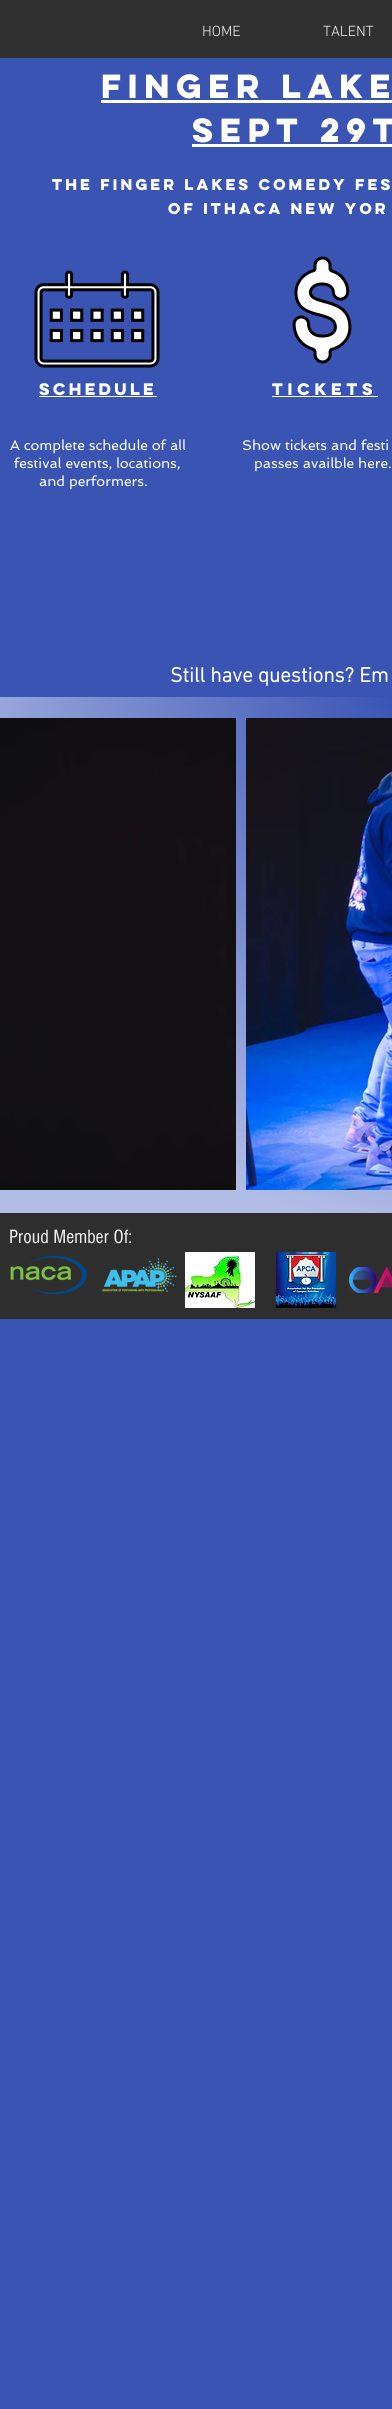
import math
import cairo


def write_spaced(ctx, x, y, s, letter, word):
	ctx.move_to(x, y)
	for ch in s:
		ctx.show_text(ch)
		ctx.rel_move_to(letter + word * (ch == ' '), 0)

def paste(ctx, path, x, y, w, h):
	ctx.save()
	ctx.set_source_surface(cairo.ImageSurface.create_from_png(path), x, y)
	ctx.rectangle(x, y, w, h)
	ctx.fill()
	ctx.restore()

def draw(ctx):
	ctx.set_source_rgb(0.227, 0.329, 0.706)
	ctx.paint()
	ctx.set_source_rgb(0.188, 0.188, 0.188)
	ctx.rectangle(0, 0, 392, 58)
	ctx.fill()
	ctx.select_font_face('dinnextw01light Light')
	ctx.set_font_size(15)
	ctx.set_source_rgb(0.941, 0.941, 0.941)
	ctx.move_to(202, 36)
	ctx.show_text('HOME')
	ctx.move_to(323, 36)
	ctx.show_text('TALENT')
	ctx.select_font_face('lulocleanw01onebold', cairo.FONT_SLANT_NORMAL, cairo.FONT_WEIGHT_BOLD)
	ctx.set_font_size(30)
	ctx.set_source_rgb(1, 1, 0.996)
	ctx.move_to(101, 98)
	ctx.show_text('FINGER LAKE')
	ctx.rectangle(101, 100, 291, 3)
	ctx.fill()
	ctx.move_to(192, 142)
	ctx.show_text('Sept 29t')
	ctx.rectangle(192, 144, 200, 3)
	ctx.fill()
	ctx.set_font_size(14)
	ctx.move_to(52, 190)
	ctx.show_text('The Finger Lakes Comedy Fes')
	ctx.move_to(168, 214)
	ctx.show_text('of Ithaca New Yor')
	paste(ctx, 'media/1.png', 34, 270, 126, 98)
	paste(ctx, 'media/2.png', 292, 256, 60, 108)
	ctx.set_font_size(15)
	ctx.move_to(39, 395)
	ctx.show_text('Schedule')
	ctx.set_source_rgb(1, 1, 1)
	ctx.rectangle(39, 396, 118, 1)
	ctx.fill()
	ctx.set_source_rgb(1, 1, 0.996)
	write_spaced(ctx, 272, 395, 'Tickets', 1.5, 0)
	ctx.set_source_rgb(1, 1, 1)
	ctx.rectangle(272, 396, 106, 1)
	ctx.fill()
	ctx.select_font_face('Spinnaker')
	ctx.set_font_size(14)
	ctx.set_source_rgb(1, 1, 0.996)
	for x, y, s in [
		(10, 450, 'A complete schedule of all'),
		(14, 468, 'festival events, locations,'),
		(39, 486, 'and performers.'),
		(242, 450, 'Show tickets and festi'),
		(254, 468, 'passes availble here.'),
	]:
		ctx.move_to(x, y)
		ctx.show_text(s)
	ctx.select_font_face('dinnextw01light', cairo.FONT_SLANT_NORMAL, cairo.FONT_WEIGHT_BOLD)
	ctx.set_font_size(21)
	ctx.move_to(170, 682)
	ctx.show_text('Still have questions? Em')
	gradient = cairo.RadialGradient(490, 636, 0, 490, 636, 757)
	gradient.add_color_stop_rgba(0.15, 0.227, 0.329, 0.706, 1)
	gradient.add_color_stop_rgba(0.8, 0.698, 0.741, 0.902, 1)
	ctx.set_source(gradient)
	ctx.rectangle(0, 697, 392, 516)
	ctx.fill()
	paste(ctx, 'media/3.png', 0, 718, 236, 472)
	paste(ctx, 'media/4.png', 246, 718, 146, 472)
	ctx.set_source_rgb(0.184, 0.18, 0.18)
	ctx.rectangle(0, 1213, 392, 106)
	ctx.fill()
	ctx.select_font_face('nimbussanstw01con')
	ctx.set_font_size(20)
	ctx.set_source_rgb(0.941, 0.941, 0.941)
	ctx.move_to(9, 1243)
	ctx.show_text('Proud Member Of:')
	paste(ctx, 'media/5.png', 10, 1255, 77, 40)
	paste(ctx, 'media/6.png', 101, 1258, 76, 34)
	paste(ctx, 'media/7.png', 185, 1252, 70, 56)
	paste(ctx, 'media/8.png', 275, 1252, 62, 56)
	paste(ctx, 'media/9.png', 349, 1267, 43, 26)


surface = cairo.ImageSurface(cairo.FORMAT_RGB24, 392, 2409)
ctx = cairo.Context(surface)
options = cairo.FontOptions()
options.set_hint_metrics(cairo.HINT_METRICS_OFF)
options.set_hint_style(cairo.HINT_STYLE_NONE)
ctx.set_font_options(options)
ctx.set_miter_limit(4)
draw(ctx)
surface.write_to_png('image.png')
